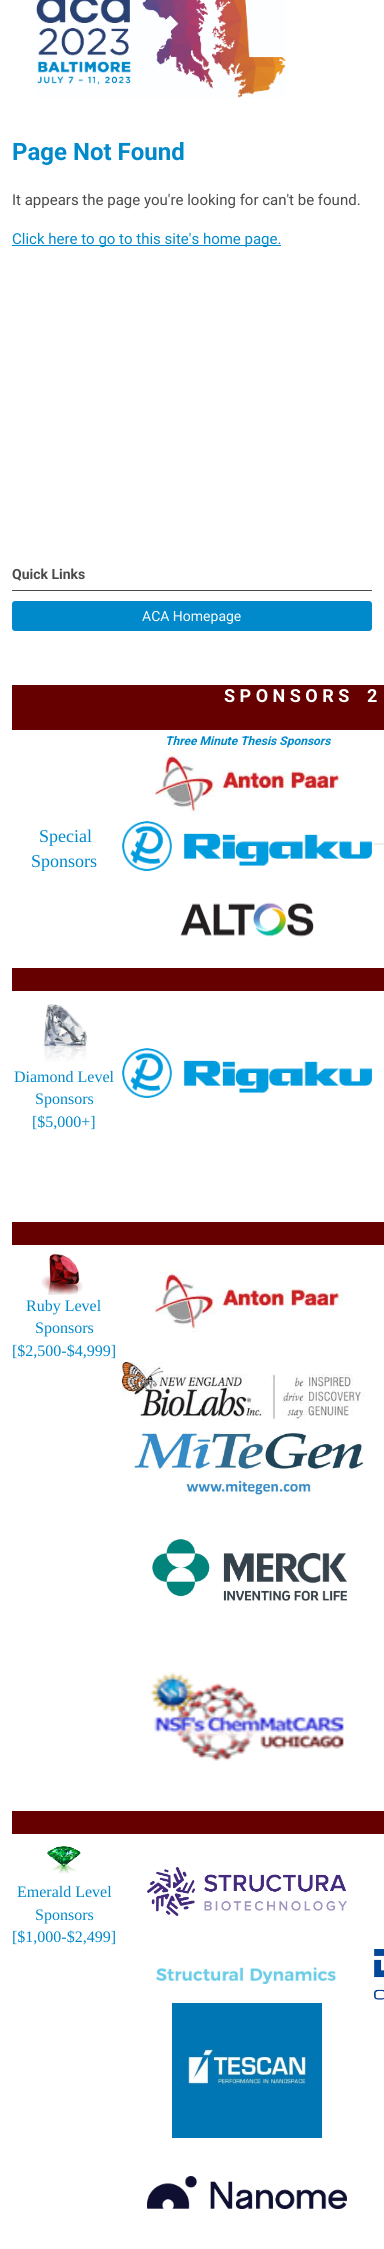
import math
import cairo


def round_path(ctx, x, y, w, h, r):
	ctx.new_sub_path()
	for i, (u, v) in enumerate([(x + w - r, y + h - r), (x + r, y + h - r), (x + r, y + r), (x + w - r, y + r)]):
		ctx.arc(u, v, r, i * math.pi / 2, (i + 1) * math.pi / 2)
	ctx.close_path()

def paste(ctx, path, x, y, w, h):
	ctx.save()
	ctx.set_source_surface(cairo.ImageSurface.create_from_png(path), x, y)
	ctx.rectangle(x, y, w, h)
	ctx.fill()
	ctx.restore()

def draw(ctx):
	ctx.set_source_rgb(1, 1, 1)
	ctx.paint()
	paste(ctx, 'media/1.png', 36, 0, 250, 98)
	ctx.select_font_face('Roboto', cairo.FONT_SLANT_NORMAL, cairo.FONT_WEIGHT_BOLD)
	ctx.set_font_size(24)
	ctx.set_source_rgb(0, 0.537, 0.796)
	ctx.move_to(12, 160)
	ctx.show_text('Page Not Found')
	ctx.select_font_face('Roboto')
	ctx.set_font_size(15)
	ctx.set_source_rgb(0.29, 0.29, 0.29)
	ctx.move_to(12, 205)
	ctx.show_text('It appears the page you\'re looking for can\'t be found.')
	ctx.set_source_rgb(0, 0.537, 0.796)
	ctx.rectangle(12, 245, 269, 1)
	ctx.fill()
	ctx.move_to(12, 244)
	ctx.show_text('Click here to go to this site\'s home page.')
	ctx.set_source_rgb(0.29, 0.29, 0.29)
	ctx.rectangle(12, 590, 360, 1)
	ctx.fill()
	ctx.select_font_face('Roboto', cairo.FONT_SLANT_NORMAL, cairo.FONT_WEIGHT_BOLD)
	ctx.set_font_size(14)
	ctx.move_to(12, 579)
	ctx.show_text('Quick Links')
	ctx.set_source_rgb(0, 0.537, 0.796)
	round_path(ctx, 12, 601, 360, 30, 3)
	ctx.fill()
	ctx.select_font_face('Roboto')
	ctx.set_source_rgb(1, 1, 1)
	ctx.move_to(142, 621)
	ctx.show_text('ACA Homepage')
	ctx.set_source_rgb(0.4, 0, 0)
	ctx.rectangle(12, 685, 372, 45)
	ctx.fill()
	ctx.select_font_face('Roboto', cairo.FONT_SLANT_NORMAL, cairo.FONT_WEIGHT_BOLD)
	ctx.set_font_size(18)
	ctx.set_source_rgb(1, 1, 1)
	ctx.move_to(224, 702)
	ctx.show_text('S P O N S O R S    2')
	ctx.select_font_face('Roboto', cairo.FONT_SLANT_ITALIC, cairo.FONT_WEIGHT_BOLD)
	ctx.set_font_size(12)
	ctx.set_source_rgb(0, 0.537, 0.796)
	ctx.move_to(165, 745)
	ctx.show_text('Three Minute Thesis Sponsors')
	paste(ctx, 'media/2.png', 152, 752, 191, 63)
	paste(ctx, 'media/3.png', 122, 821, 250, 50)
	paste(ctx, 'media/4.png', 180, 902, 134, 35)
	ctx.select_font_face('Liberation Serif')
	ctx.set_font_size(18)
	ctx.move_to(39, 842)
	ctx.show_text('Special')
	ctx.move_to(31, 867)
	ctx.show_text('Sponsors')
	ctx.set_source_rgb(0.933, 0.933, 0.933)
	ctx.rectangle(374, 843, 10, 2)
	ctx.fill()
	ctx.set_source_rgb(0.4, 0, 0)
	ctx.rectangle(12, 968, 372, 23)
	ctx.fill()
	paste(ctx, 'media/5.png', 43, 1004, 44, 58)
	ctx.set_font_size(16)
	ctx.set_source_rgb(0, 0.537, 0.796)
	for x, y, s in [
		(14, 1082, 'Diamond Level'),
		(35, 1104, 'Sponsors'),
		(32, 1127, '[$5,000+]'),
	]:
		ctx.move_to(x, y)
		ctx.show_text(s)
	paste(ctx, 'media/6.png', 122, 1048, 250, 50)
	ctx.set_source_rgb(0.4, 0, 0)
	ctx.rectangle(12, 1222, 372, 23)
	ctx.fill()
	paste(ctx, 'media/7.png', 41, 1253, 42, 42)
	ctx.set_source_rgb(0, 0.537, 0.796)
	for x, y, s in [
		(26, 1311, 'Ruby Level'),
		(35, 1333, 'Sponsors'),
		(12, 1356, '[$2,500-$4,999]'),
	]:
		ctx.move_to(x, y)
		ctx.show_text(s)
	paste(ctx, 'media/8.png', 152, 1270, 191, 62)
	paste(ctx, 'media/9.png', 122, 1362, 243, 58)
	paste(ctx, 'media/10.png', 134, 1432, 230, 64)
	paste(ctx, 'media/11.png', 152, 1539, 195, 62)
	paste(ctx, 'media/12.png', 150, 1672, 194, 89)
	ctx.set_source_rgb(0.4, 0, 0)
	ctx.rectangle(12, 1811, 372, 23)
	ctx.fill()
	paste(ctx, 'media/13.png', 47, 1846, 34, 28)
	ctx.set_source_rgb(0, 0.537, 0.796)
	for x, y, s in [
		(17, 1897, 'Emerald Level'),
		(35, 1920, 'Sponsors'),
		(12, 1942, '[$1,000-$2,499]'),
	]:
		ctx.move_to(x, y)
		ctx.show_text(s)
	paste(ctx, 'media/14.png', 147, 1867, 200, 49)
	paste(ctx, 'media/15.png', 156, 1967, 180, 18)
	paste(ctx, 'media/16.png', 374, 1949, 10, 51)
	paste(ctx, 'media/17.png', 172, 2003, 150, 135)
	paste(ctx, 'media/18.png', 147, 2176, 200, 33)


surface = cairo.ImageSurface(cairo.FORMAT_RGB24, 384, 2249)
ctx = cairo.Context(surface)
options = cairo.FontOptions()
options.set_hint_metrics(cairo.HINT_METRICS_OFF)
options.set_hint_style(cairo.HINT_STYLE_NONE)
ctx.set_font_options(options)
ctx.set_miter_limit(4)
draw(ctx)
surface.write_to_png('image.png')
